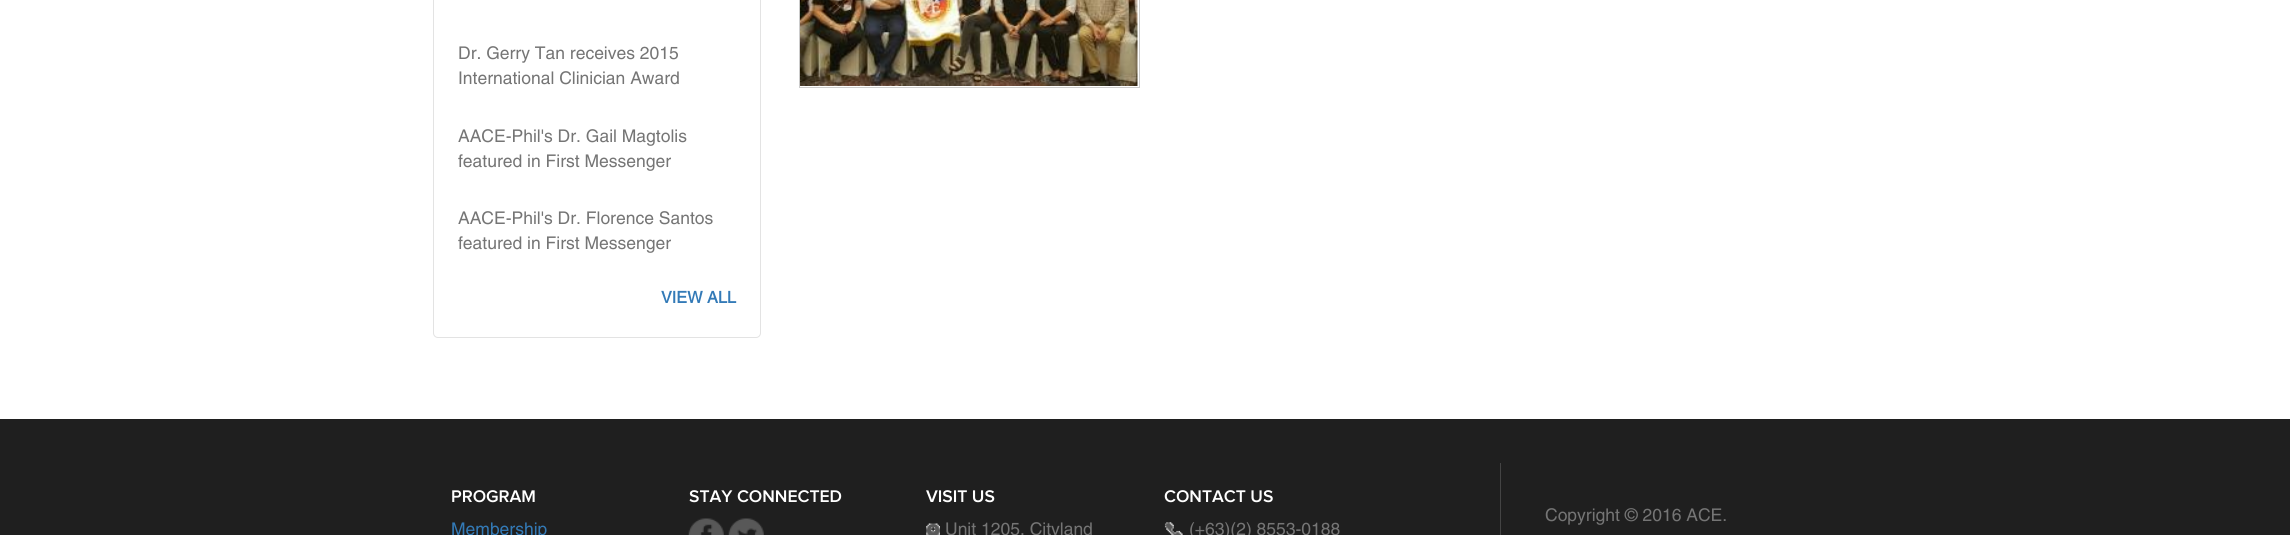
import math
import cairo


def round_path(ctx, x, y, w, h, r):
	ctx.new_sub_path()
	for i, (u, v) in enumerate([(x + w - r, y + h - r), (x + r, y + h - r), (x + r, y + r), (x + w - r, y + r)]):
		ctx.arc(u, v, r, i * math.pi / 2, (i + 1) * math.pi / 2)
	ctx.close_path()

def paste(ctx, path, x, y, w, h):
	ctx.save()
	ctx.set_source_surface(cairo.ImageSurface.create_from_png(path), x, y)
	ctx.rectangle(x, y, w, h)
	ctx.fill()
	ctx.restore()

def draw(ctx):
	ctx.set_source_rgb(1, 1, 1)
	ctx.paint()
	round_path(ctx, 433.5, -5.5, 327, 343, 4.5)
	ctx.set_source_rgb(0.89, 0.89, 0.89)
	ctx.set_line_width(1)
	ctx.stroke()
	ctx.select_font_face('Helvetica')
	ctx.set_font_size(17.5)
	ctx.set_source_rgb(0.459, 0.459, 0.459)
	for x, y, s in [
		(458, 59, 'Dr. Gerry Tan receives 2015'),
		(458, 84, 'International Clinician Award'),
		(458, 142, 'AACE-Phil\'s Dr. Gail Magtolis'),
		(458, 167, 'featured in First Messenger'),
		(458, 224, 'AACE-Phil\'s Dr. Florence Santos'),
		(458, 249, 'featured in First Messenger'),
	]:
		ctx.move_to(x, y)
		ctx.show_text(s)
	ctx.select_font_face('Helvetica', cairo.FONT_SLANT_NORMAL, cairo.FONT_WEIGHT_BOLD)
	ctx.set_font_size(16.25)
	ctx.set_source_rgb(0.2, 0.478, 0.718)
	ctx.move_to(661, 303)
	ctx.show_text('VIEW ALL')
	ctx.rectangle(799.5, -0.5, 340, 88)
	ctx.set_source_rgb(0.8, 0.8, 0.8)
	ctx.stroke()
	paste(ctx, 'media/1.png', 800, 0, 338, 86)
	ctx.set_source_rgb(0.122, 0.122, 0.122)
	ctx.rectangle(0, 419, 2290, 116)
	ctx.fill()
	ctx.select_font_face('Proxima Nova SemiBold')
	ctx.set_font_size(17.5)
	ctx.set_source_rgb(1, 1, 1)
	ctx.move_to(451, 502)
	ctx.show_text('PROGRAM')
	ctx.select_font_face('Helvetica')
	ctx.set_source_rgb(0.2, 0.478, 0.718)
	ctx.move_to(451, 535)
	ctx.show_text('Membership')
	ctx.select_font_face('Proxima Nova SemiBold')
	ctx.set_source_rgb(1, 1, 1)
	ctx.move_to(689, 502)
	ctx.show_text('STAY CONNECTED')
	paste(ctx, 'media/2.png', 688, 518, 36, 17)
	paste(ctx, 'media/3.png', 728, 518, 36, 17)
	ctx.move_to(926, 502)
	ctx.show_text('VISIT US')
	paste(ctx, 'media/4.png', 926, 523, 14, 12)
	ctx.select_font_face('Helvetica')
	ctx.set_source_rgb(0.459, 0.459, 0.459)
	ctx.move_to(945, 535)
	ctx.show_text('Unit 1205, Cityland')
	ctx.set_source_rgb(0.267, 0.267, 0.267)
	ctx.rectangle(1500, 463, 1, 72)
	ctx.fill()
	ctx.select_font_face('Proxima Nova SemiBold')
	ctx.set_source_rgb(1, 1, 1)
	ctx.move_to(1164, 502)
	ctx.show_text('CONTACT US')
	paste(ctx, 'media/5.png', 1164, 522, 19, 13)
	ctx.select_font_face('Helvetica')
	ctx.set_source_rgb(0.459, 0.459, 0.459)
	ctx.move_to(1189, 535)
	ctx.show_text('(+63)(2) 8553-0188')
	ctx.move_to(1545, 521)
	ctx.show_text('Copyright © 2016 ACE.')


surface = cairo.ImageSurface(cairo.FORMAT_RGB24, 2290, 535)
ctx = cairo.Context(surface)
options = cairo.FontOptions()
options.set_hint_metrics(cairo.HINT_METRICS_OFF)
options.set_hint_style(cairo.HINT_STYLE_NONE)
ctx.set_font_options(options)
ctx.set_miter_limit(4)
draw(ctx)
surface.write_to_png('image.png')
